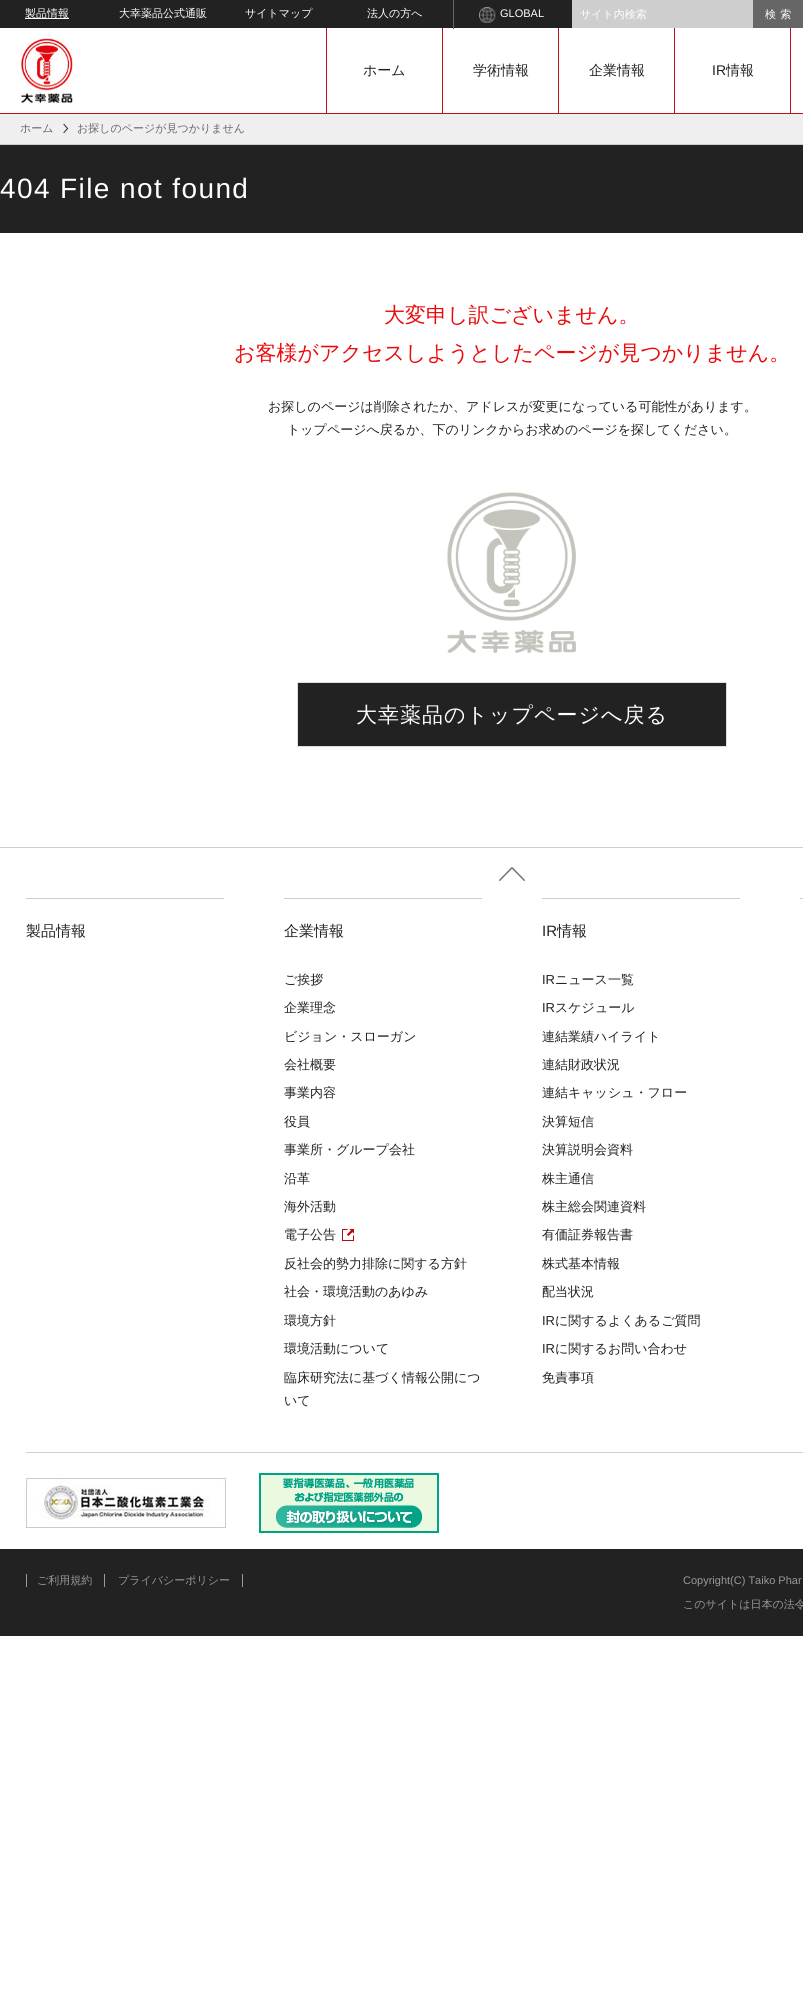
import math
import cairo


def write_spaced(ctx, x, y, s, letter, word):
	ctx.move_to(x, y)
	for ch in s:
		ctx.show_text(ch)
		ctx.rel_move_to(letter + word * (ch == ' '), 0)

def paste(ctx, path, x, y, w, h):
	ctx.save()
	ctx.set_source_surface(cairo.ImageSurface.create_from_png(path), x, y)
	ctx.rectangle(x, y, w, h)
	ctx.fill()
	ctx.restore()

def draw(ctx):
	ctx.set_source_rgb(1, 1, 1)
	ctx.paint()
	ctx.set_source_rgb(0.718, 0.075, 0.075)
	ctx.rectangle(0, 113, 803, 1)
	ctx.fill()
	ctx.set_source_rgb(0.133, 0.133, 0.133)
	ctx.rectangle(0, 0, 572, 28)
	ctx.fill()
	ctx.set_source_rgb(1, 1, 1)
	ctx.rectangle(25, 18, 44, 1)
	ctx.fill()
	ctx.select_font_face('WenQuanYi Zen Hei Medium')
	ctx.set_font_size(11)
	for x, y, s in [
		(25, 17, '製品情報'),
		(119, 17, '大幸薬品公式通販'),
		(245, 17, 'サイトマップ'),
		(367, 17, '法人の方へ'),
	]:
		ctx.move_to(x, y)
		ctx.show_text(s)
	ctx.set_source_rgb(0.4, 0.4, 0.4)
	ctx.rectangle(453, 0, 1, 29)
	ctx.fill()
	paste(ctx, 'media/1.png', 479, 7, 17, 16)
	ctx.select_font_face('Liberation Sans')
	ctx.set_source_rgb(1, 1, 1)
	ctx.move_to(500, 17)
	ctx.show_text('GLOBAL')
	ctx.set_source_rgb(0.718, 0.075, 0.075)
	ctx.rectangle(326, 28, 1, 85)
	ctx.fill()
	ctx.select_font_face('WenQuanYi Zen Hei Medium')
	ctx.set_font_size(14)
	ctx.set_source_rgb(0.133, 0.133, 0.133)
	ctx.move_to(363, 75)
	ctx.show_text('ホーム')
	ctx.set_source_rgb(0.718, 0.075, 0.075)
	ctx.rectangle(442, 28, 1, 85)
	ctx.fill()
	ctx.set_source_rgb(0.133, 0.133, 0.133)
	ctx.move_to(473, 75)
	ctx.show_text('学術情報')
	ctx.set_source_rgb(0.718, 0.075, 0.075)
	ctx.rectangle(558, 28, 1, 85)
	ctx.fill()
	ctx.set_source_rgb(0.133, 0.133, 0.133)
	ctx.move_to(589, 75)
	ctx.show_text('企業情報')
	ctx.set_source_rgb(0.718, 0.075, 0.075)
	ctx.rectangle(674, 28, 1, 85)
	ctx.fill()
	ctx.select_font_face('Liberation Sans')
	ctx.set_source_rgb(0.133, 0.133, 0.133)
	ctx.move_to(712, 75)
	ctx.show_text('IR')
	ctx.select_font_face('WenQuanYi Zen Hei Medium')
	ctx.move_to(726, 75)
	ctx.show_text('情報')
	ctx.set_source_rgb(0.718, 0.075, 0.075)
	ctx.rectangle(790, 28, 1, 85)
	ctx.fill()
	ctx.set_source_rgb(0.808, 0.808, 0.808)
	ctx.rectangle(572, 0, 181, 28)
	ctx.fill()
	ctx.set_font_size(11)
	ctx.set_source_rgb(1, 1, 1)
	ctx.move_to(580, 18)
	ctx.show_text('サイト内検索')
	ctx.set_source_rgb(0.4, 0.4, 0.4)
	ctx.rectangle(753, 0, 50, 28)
	ctx.fill()
	ctx.set_source_rgb(1, 1, 1)
	write_spaced(ctx, 765, 18, '検 索', 0.5, 0)
	paste(ctx, 'media/2.png', 20, 38, 53, 65)
	ctx.set_source_rgb(0.937, 0.937, 0.937)
	ctx.rectangle(0, 114, 803, 30)
	ctx.fill()
	ctx.set_source_rgb(0.808, 0.808, 0.808)
	ctx.rectangle(0, 144, 803, 1)
	ctx.fill()
	paste(ctx, 'media/3.png', 63, 123, 6, 11)
	ctx.set_source_rgb(0.4, 0.4, 0.4)
	ctx.move_to(20, 132)
	ctx.show_text('ホーム')
	ctx.move_to(77, 132)
	ctx.show_text('お探しのページが見つかりません')
	ctx.set_source_rgb(0.133, 0.133, 0.133)
	ctx.rectangle(0, 145, 803, 88)
	ctx.fill()
	ctx.select_font_face('Liberation Sans')
	ctx.set_font_size(28)
	ctx.set_source_rgb(1, 1, 1)
	write_spaced(ctx, 0, 198, '404 File not found', 1.4, 0)
	ctx.select_font_face('WenQuanYi Zen Hei Medium')
	ctx.set_font_size(21)
	ctx.set_source_rgb(0.918, 0.039, 0.039)
	ctx.move_to(384, 322)
	ctx.show_text('大変申し訳ございません。')
	ctx.move_to(234, 360)
	ctx.show_text('お客様がアクセスしようとしたページが見つかりません。')
	ctx.set_font_size(13)
	ctx.set_source_rgb(0.133, 0.133, 0.133)
	ctx.move_to(268, 411)
	ctx.show_text('お探しのページは削除されたか、アドレスが変更になっている可能性があります。')
	ctx.move_to(287, 434)
	ctx.show_text('トップページへ戻るか、下のリンクからお求めのページを探してください。')
	paste(ctx, 'media/4.png', 447, 492, 129, 161)
	ctx.rectangle(297.5, 682.5, 429, 64)
	ctx.fill_preserve()
	ctx.set_source_rgb(0.867, 0.867, 0.867)
	ctx.set_line_width(1)
	ctx.stroke()
	ctx.set_font_size(21)
	ctx.set_source_rgb(1, 1, 1)
	write_spaced(ctx, 356, 722, '大幸薬品のトップページへ戻る', 1, 0)
	ctx.set_source_rgb(0.808, 0.808, 0.808)
	ctx.rectangle(0, 847, 803, 1)
	ctx.fill()
	paste(ctx, 'media/5.png', 499, 867, 26, 14)
	ctx.rectangle(800, 898, 3, 1)
	ctx.fill()
	ctx.rectangle(26, 898, 198, 1)
	ctx.fill()
	ctx.set_font_size(15)
	ctx.set_source_rgb(0.133, 0.133, 0.133)
	ctx.move_to(26, 936)
	ctx.show_text('製品情報')
	ctx.set_source_rgb(0.808, 0.808, 0.808)
	ctx.rectangle(284, 898, 198, 1)
	ctx.fill()
	ctx.set_source_rgb(0.133, 0.133, 0.133)
	ctx.move_to(284, 936)
	ctx.show_text('企業情報')
	ctx.set_font_size(13)
	for x, y, s in [
		(284, 984, 'ご挨拶'),
		(284, 1012, '企業理念'),
		(284, 1041, 'ビジョン・スローガン'),
		(284, 1069, '会社概要'),
		(284, 1097, '事業内容'),
		(284, 1126, '役員'),
		(284, 1154, '事業所・グループ会社'),
		(284, 1183, '沿革'),
		(284, 1211, '海外活動'),
		(284, 1239, '電子公告'),
	]:
		ctx.move_to(x, y)
		ctx.show_text(s)
	paste(ctx, 'media/6.png', 342, 1229, 12, 12)
	for x, y, s in [
		(284, 1268, '反社会的勢力排除に関する方針'),
		(284, 1296, '社会・環境活動のあゆみ'),
		(284, 1325, '環境方針'),
		(284, 1353, '環境活動について'),
		(284, 1382, '臨床研究法に基づく情報公開につ'),
		(284, 1405, 'いて'),
	]:
		ctx.move_to(x, y)
		ctx.show_text(s)
	ctx.set_source_rgb(0.808, 0.808, 0.808)
	ctx.rectangle(542, 898, 198, 1)
	ctx.fill()
	ctx.select_font_face('Liberation Sans')
	ctx.set_font_size(15)
	ctx.set_source_rgb(0.133, 0.133, 0.133)
	ctx.move_to(542, 936)
	ctx.show_text('IR')
	ctx.select_font_face('WenQuanYi Zen Hei Medium')
	ctx.move_to(557, 936)
	ctx.show_text('情報')
	ctx.select_font_face('Liberation Sans')
	ctx.set_font_size(13)
	ctx.move_to(542, 984)
	ctx.show_text('IR')
	ctx.select_font_face('WenQuanYi Zen Hei Medium')
	ctx.move_to(555, 984)
	ctx.show_text('ニュース一覧')
	ctx.select_font_face('Liberation Sans')
	ctx.move_to(542, 1012)
	ctx.show_text('IR')
	ctx.select_font_face('WenQuanYi Zen Hei Medium')
	for x, y, s in [
		(555, 1012, 'スケジュール'),
		(542, 1041, '連結業績ハイライト'),
		(542, 1069, '連結財政状況'),
		(542, 1097, '連結キャッシュ・フロー'),
		(542, 1126, '決算短信'),
		(542, 1154, '決算説明会資料'),
		(542, 1183, '株主通信'),
		(542, 1211, '株主総会関連資料'),
		(542, 1239, '有価証券報告書'),
		(542, 1268, '株式基本情報'),
		(542, 1296, '配当状況'),
	]:
		ctx.move_to(x, y)
		ctx.show_text(s)
	ctx.select_font_face('Liberation Sans')
	ctx.move_to(542, 1325)
	ctx.show_text('IR')
	ctx.select_font_face('WenQuanYi Zen Hei Medium')
	ctx.move_to(555, 1325)
	ctx.show_text('に関するよくあるご質問')
	ctx.select_font_face('Liberation Sans')
	ctx.move_to(542, 1353)
	ctx.show_text('IR')
	ctx.select_font_face('WenQuanYi Zen Hei Medium')
	ctx.move_to(555, 1353)
	ctx.show_text('に関するお問い合わせ')
	ctx.move_to(542, 1382)
	ctx.show_text('免責事項')
	ctx.set_source_rgb(0.808, 0.808, 0.808)
	ctx.rectangle(26, 1452, 777, 1)
	ctx.fill()
	paste(ctx, 'media/7.png', 26, 1478, 200, 50)
	paste(ctx, 'media/8.png', 259, 1473, 180, 60)
	ctx.set_source_rgb(0.133, 0.133, 0.133)
	ctx.rectangle(0, 1549, 803, 87)
	ctx.fill()
	ctx.set_source_rgb(0.6, 0.6, 0.6)
	ctx.rectangle(104, 1574, 1, 13)
	ctx.rectangle(26, 1574, 1, 13)
	ctx.fill()
	ctx.set_font_size(11)
	ctx.move_to(37, 1584)
	ctx.show_text('ご利用規約')
	ctx.rectangle(242, 1574, 1, 13)
	ctx.fill()
	ctx.move_to(118, 1584)
	ctx.show_text('プライバシーポリシー')
	ctx.select_font_face('Liberation Sans')
	ctx.move_to(683, 1584)
	ctx.show_text('Copyright(C) Taiko Phar')
	ctx.select_font_face('WenQuanYi Zen Hei Medium')
	ctx.move_to(683, 1608)
	ctx.show_text('このサイトは日本の法令')


surface = cairo.ImageSurface(cairo.FORMAT_RGB24, 803, 1993)
ctx = cairo.Context(surface)
options = cairo.FontOptions()
options.set_hint_metrics(cairo.HINT_METRICS_OFF)
options.set_hint_style(cairo.HINT_STYLE_NONE)
ctx.set_font_options(options)
ctx.set_miter_limit(4)
draw(ctx)
surface.write_to_png('image.png')
